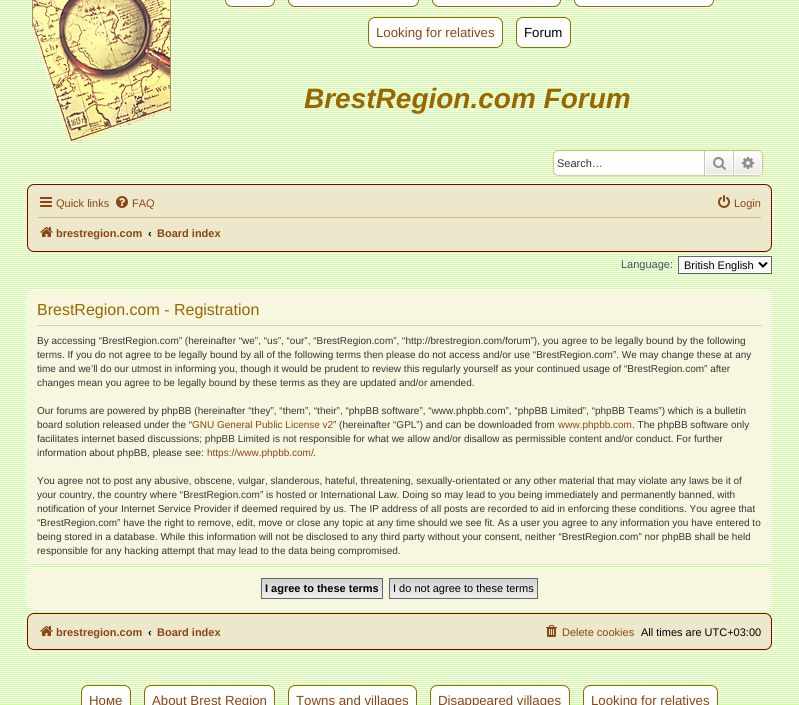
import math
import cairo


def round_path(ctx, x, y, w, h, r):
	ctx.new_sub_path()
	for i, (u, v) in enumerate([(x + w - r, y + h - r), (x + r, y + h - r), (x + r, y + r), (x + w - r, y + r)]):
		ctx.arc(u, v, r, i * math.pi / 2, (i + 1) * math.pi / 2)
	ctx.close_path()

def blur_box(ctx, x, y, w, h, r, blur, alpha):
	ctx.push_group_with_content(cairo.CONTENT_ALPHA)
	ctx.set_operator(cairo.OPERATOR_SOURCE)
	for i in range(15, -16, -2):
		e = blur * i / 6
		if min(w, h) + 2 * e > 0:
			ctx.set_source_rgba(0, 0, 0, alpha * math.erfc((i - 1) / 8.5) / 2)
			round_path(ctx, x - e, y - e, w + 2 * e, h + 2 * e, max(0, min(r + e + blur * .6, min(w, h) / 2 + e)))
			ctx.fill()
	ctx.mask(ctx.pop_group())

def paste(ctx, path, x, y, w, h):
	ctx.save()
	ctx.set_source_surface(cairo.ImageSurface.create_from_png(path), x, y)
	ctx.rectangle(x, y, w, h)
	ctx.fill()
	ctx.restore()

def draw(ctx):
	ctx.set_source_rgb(1, 1, 1)
	ctx.paint()
	paste(ctx, 'media/1.png', 0, 0, 799, 705)
	paste(ctx, 'media/2.png', 32, 0, 139, 143)
	ctx.set_source_rgb(1, 1, 1)
	round_path(ctx, 225.5, -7.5, 49, 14, 6.5)
	ctx.fill_preserve()
	ctx.set_source_rgb(0.6, 0.4, 0)
	ctx.set_line_width(1)
	ctx.stroke()
	ctx.set_source_rgb(1, 1, 1)
	round_path(ctx, 288.5, -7.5, 130, 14, 6.5)
	ctx.fill_preserve()
	ctx.set_source_rgb(0.6, 0.4, 0)
	ctx.stroke()
	ctx.set_source_rgb(1, 1, 1)
	round_path(ctx, 432.5, -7.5, 128, 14, 6.5)
	ctx.fill_preserve()
	ctx.set_source_rgb(0.6, 0.4, 0)
	ctx.stroke()
	ctx.set_source_rgb(1, 1, 1)
	round_path(ctx, 574.5, -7.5, 139, 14, 6.5)
	ctx.fill_preserve()
	ctx.set_source_rgb(0.6, 0.4, 0)
	ctx.stroke()
	ctx.set_source_rgb(1, 1, 1)
	round_path(ctx, 368.5, 17.5, 134, 30, 6.5)
	ctx.fill_preserve()
	ctx.set_source_rgb(0.6, 0.4, 0)
	ctx.stroke()
	ctx.select_font_face('Liberation Sans')
	ctx.set_font_size(13.25)
	ctx.set_source_rgb(0.545, 0.271, 0.075)
	ctx.move_to(376, 37)
	ctx.show_text('Looking for relatives')
	ctx.set_source_rgb(1, 1, 1)
	round_path(ctx, 516.5, 17.5, 54, 30, 6.5)
	ctx.fill_preserve()
	ctx.set_source_rgb(0.6, 0.4, 0)
	ctx.stroke()
	ctx.set_source_rgb(0, 0, 0)
	ctx.move_to(524, 37)
	ctx.show_text('Forum')
	ctx.select_font_face('Liberation Sans', cairo.FONT_SLANT_ITALIC, cairo.FONT_WEIGHT_BOLD)
	ctx.set_font_size(28)
	ctx.set_source_rgb(0.6, 0.4, 0)
	ctx.move_to(304, 108)
	ctx.show_text('BrestRegion.com Forum')
	ctx.set_source_rgb(0.6, 0.4, 0)
	blur_box(ctx, 554, 151, 208, 24, 4, 1, 1)
	ctx.set_source_rgb(1, 1, 1)
	ctx.new_path()
	ctx.move_to(558, 151)
	ctx.line_to(704, 151)
	ctx.line_to(704, 175)
	ctx.line_to(558, 175)
	ctx.curve_to(556, 175, 554, 173, 554, 171)
	ctx.line_to(554, 155)
	ctx.curve_to(554, 153, 556, 151, 558, 151)
	ctx.close_path()
	ctx.fill()
	ctx.select_font_face('Liberation Sans')
	ctx.set_font_size(11)
	ctx.set_source_rgb(0.2, 0.2, 0.2)
	ctx.move_to(557, 167)
	ctx.show_text('Search…')
	gradient = cairo.LinearGradient(719, 151, 719, 175)
	gradient.add_color_stop_rgba(0, 1, 1, 1, 1)
	gradient.add_color_stop_rgba(1, 0.914, 0.914, 0.914, 1)
	ctx.set_source(gradient)
	ctx.rectangle(706, 152, 26, 22)
	ctx.fill()
	ctx.rectangle(705.5, 151.5, 27, 23)
	ctx.set_source_rgb(1, 1, 1)
	ctx.stroke()
	ctx.set_source_rgb(0.78, 0.765, 0.749)
	ctx.rectangle(733, 151, 1, 24)
	ctx.fill()
	ctx.rectangle(704, 151, 1, 24)
	ctx.fill()
	paste(ctx, 'media/3.png', 713, 157, 13, 13)
	gradient = cairo.LinearGradient(748, 151, 748, 175)
	gradient.add_color_stop_rgba(0, 1, 1, 1, 1)
	gradient.add_color_stop_rgba(1, 0.914, 0.914, 0.914, 1)
	ctx.set_source(gradient)
	ctx.new_path()
	ctx.move_to(734.5, 151.5)
	ctx.line_to(758, 151.5)
	ctx.curve_to(760, 151.5, 761.5, 153, 761.5, 155)
	ctx.line_to(761.5, 171)
	ctx.curve_to(761.5, 173, 760, 174.5, 758, 174.5)
	ctx.line_to(734.5, 174.5)
	ctx.close_path()
	ctx.fill_preserve()
	ctx.set_source_rgb(1, 1, 1)
	ctx.stroke()
	paste(ctx, 'media/4.png', 742, 157, 12, 12)
	ctx.set_source_rgb(0.929, 0.91, 0.796)
	round_path(ctx, 27.5, 184.5, 744, 67, 6.5)
	ctx.fill_preserve()
	ctx.set_source_rgb(0.502, 0, 0)
	ctx.stroke()
	paste(ctx, 'media/5.png', 40, 197, 12, 10)
	ctx.set_source_rgb(0.545, 0.271, 0.075)
	ctx.move_to(56, 207)
	ctx.show_text('Quick links')
	paste(ctx, 'media/6.png', 116, 196, 12, 12)
	ctx.move_to(132, 207)
	ctx.show_text('FAQ')
	paste(ctx, 'media/7.png', 718, 195, 12, 13)
	ctx.move_to(734, 207)
	ctx.show_text('Login')
	ctx.set_source_rgb(0.824, 0.706, 0.549)
	ctx.rectangle(38, 217, 723, 1)
	ctx.fill()
	paste(ctx, 'media/8.png', 40, 227, 13, 10)
	ctx.select_font_face('Liberation Sans', cairo.FONT_SLANT_NORMAL, cairo.FONT_WEIGHT_BOLD)
	ctx.set_source_rgb(0.545, 0.271, 0.075)
	ctx.move_to(56, 237)
	ctx.show_text('brestregion.com')
	ctx.set_source_rgb(0, 0, 0)
	ctx.move_to(148, 237)
	ctx.show_text('‹')
	ctx.set_source_rgb(0.545, 0.271, 0.075)
	ctx.move_to(157, 237)
	ctx.show_text('Board index')
	ctx.select_font_face('Liberation Sans')
	ctx.set_source_rgb(0.259, 0.314, 0.404)
	ctx.move_to(621, 268)
	ctx.show_text('Language:')
	ctx.set_source_rgb(0.98, 0.98, 0.98)
	ctx.rectangle(678.5, 256.5, 93, 17)
	ctx.fill_preserve()
	ctx.set_source_rgb(0.4, 0.4, 0.4)
	ctx.stroke()
	ctx.new_path()
	ctx.move_to(759, 262.5)
	ctx.line_to(763, 266.5)
	ctx.line_to(767, 262.5)
	ctx.set_source_rgb(0, 0, 0)
	ctx.set_line_width(2)
	ctx.stroke()
	ctx.move_to(684, 269)
	ctx.show_text('British English')
	ctx.set_source_rgb(0.965, 0.965, 0.878)
	round_path(ctx, 27, 290, 745, 274, 7)
	ctx.fill()
	ctx.set_source_rgb(0.8, 0.8, 0.8)
	ctx.rectangle(37, 325, 725, 1)
	ctx.fill()
	ctx.set_font_size(16)
	ctx.set_source_rgb(0.6, 0.4, 0)
	ctx.move_to(37, 315)
	ctx.show_text('BrestRegion.com - Registration')
	ctx.set_font_size(10)
	ctx.set_source_rgb(0.2, 0.2, 0.2)
	for x, y, s in [
		(37, 344, 'By accessing “BrestRegion.com” (hereinafter “we”, “us”, “our”, “BrestRegion.com”, “http://brestregion.com/forum”), you agree to be legally bound by the following'),
		(37, 358, 'terms. If you do not agree to be legally bound by all of the following terms then please do not access and/or use “BrestRegion.com”. We may change these at any'),
		(37, 372, 'time and we’ll do our utmost in informing you, though it would be prudent to review this regularly yourself as your continued usage of “BrestRegion.com” after'),
		(37, 386, 'changes mean you agree to be legally bound by these terms as they are updated and/or amended.'),
		(37, 414, 'Our forums are powered by phpBB (hereinafter “they”, “them”, “their”, “phpBB software”, “www.phpbb.com”, “phpBB Limited”, “phpBB Teams”) which is a bulletin'),
		(37, 428, 'board solution released under the “'),
	]:
		ctx.move_to(x, y)
		ctx.show_text(s)
	ctx.set_source_rgb(0.545, 0.271, 0.075)
	ctx.move_to(192, 428)
	ctx.show_text('GNU General Public License v2')
	ctx.set_source_rgb(0.2, 0.2, 0.2)
	ctx.move_to(333, 428)
	ctx.show_text('” (hereinafter “GPL”) and can be downloaded from')
	ctx.set_source_rgb(0.545, 0.271, 0.075)
	ctx.move_to(558, 428)
	ctx.show_text('www.phpbb.com')
	ctx.set_source_rgb(0.2, 0.2, 0.2)
	for x, y, s in [
		(632, 428, '. The phpBB software only'),
		(37, 442, 'facilitates internet based discussions; phpBB Limited is not responsible for what we allow and/or disallow as permissible content and/or conduct. For further'),
		(37, 456, 'information about phpBB, please see:'),
	]:
		ctx.move_to(x, y)
		ctx.show_text(s)
	ctx.set_source_rgb(0.545, 0.271, 0.075)
	ctx.move_to(207, 456)
	ctx.show_text('https://www.phpbb.com/')
	ctx.set_source_rgb(0.2, 0.2, 0.2)
	for x, y, s in [
		(313, 456, '.'),
		(37, 484, 'You agree not to post any abusive, obscene, vulgar, slanderous, hateful, threatening, sexually-orientated or any other material that may violate any laws be it of'),
		(37, 498, 'your country, the country where “BrestRegion.com” is hosted or International Law. Doing so may lead to you being immediately and permanently banned, with'),
		(37, 512, 'notification of your Internet Service Provider if deemed required by us. The IP address of all posts are recorded to aid in enforcing these conditions. You agree that'),
		(37, 526, '“BrestRegion.com” have the right to remove, edit, move or close any topic at any time should we see fit. As a user you agree to any information you have entered to'),
		(37, 540, 'being stored in a database. While this information will not be disclosed to any third party without your consent, neither “BrestRegion.com” nor phpBB shall be held'),
		(37, 554, 'responsible for any hacking attempt that may lead to the data being compromised.'),
	]:
		ctx.move_to(x, y)
		ctx.show_text(s)
	ctx.set_source_rgb(0.965, 0.965, 0.878)
	round_path(ctx, 27, 568, 745, 41, 7)
	ctx.fill()
	gradient = cairo.LinearGradient(322, 579, 322, 598)
	gradient.add_color_stop_rgba(0, 0.824, 0.824, 0.824, 1)
	gradient.add_color_stop_rgba(1, 0.937, 0.937, 0.937, 1)
	ctx.set_source(gradient)
	ctx.rectangle(262, 579, 120, 19)
	ctx.fill()
	ctx.rectangle(261.5, 578.5, 121, 20)
	ctx.set_source_rgb(0.4, 0.4, 0.4)
	ctx.set_line_width(1)
	ctx.stroke()
	ctx.select_font_face('Liberation Sans', cairo.FONT_SLANT_NORMAL, cairo.FONT_WEIGHT_BOLD)
	ctx.set_font_size(11)
	ctx.set_source_rgb(0, 0, 0)
	ctx.move_to(265, 592)
	ctx.show_text('I agree to these terms')
	gradient = cairo.LinearGradient(464, 579, 464, 598)
	gradient.add_color_stop_rgba(0, 0.824, 0.824, 0.824, 1)
	gradient.add_color_stop_rgba(1, 0.937, 0.937, 0.937, 1)
	ctx.set_source(gradient)
	ctx.rectangle(390, 579, 147, 19)
	ctx.fill()
	ctx.rectangle(389.5, 578.5, 148, 20)
	ctx.set_source_rgb(0.4, 0.4, 0.4)
	ctx.stroke()
	ctx.select_font_face('Liberation Sans')
	ctx.set_source_rgb(0, 0, 0)
	ctx.move_to(393, 592)
	ctx.show_text('I do not agree to these terms')
	ctx.set_source_rgb(0.929, 0.91, 0.796)
	round_path(ctx, 27.5, 613.5, 744, 36, 6.5)
	ctx.fill_preserve()
	ctx.set_source_rgb(0.502, 0, 0)
	ctx.stroke()
	paste(ctx, 'media/8.png', 40, 626, 13, 10)
	ctx.select_font_face('Liberation Sans', cairo.FONT_SLANT_NORMAL, cairo.FONT_WEIGHT_BOLD)
	ctx.set_source_rgb(0.545, 0.271, 0.075)
	ctx.move_to(56, 636)
	ctx.show_text('brestregion.com')
	ctx.set_source_rgb(0, 0, 0)
	ctx.move_to(148, 636)
	ctx.show_text('‹')
	ctx.set_source_rgb(0.545, 0.271, 0.075)
	ctx.move_to(157, 636)
	ctx.show_text('Board index')
	paste(ctx, 'media/9.png', 546, 625, 11, 12)
	ctx.select_font_face('Liberation Sans')
	ctx.move_to(562, 636)
	ctx.show_text('Delete cookies')
	ctx.set_source_rgb(0, 0, 0)
	ctx.move_to(641, 636)
	ctx.show_text('All times are UTC+03:00')
	ctx.set_source_rgb(1, 1, 1)
	round_path(ctx, 81.5, 685.5, 49, 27, 6.5)
	ctx.fill_preserve()
	ctx.set_source_rgb(0.6, 0.4, 0)
	ctx.stroke()
	ctx.set_font_size(13.25)
	ctx.set_source_rgb(0.545, 0.271, 0.075)
	ctx.move_to(89, 705)
	ctx.show_text('Номе')
	ctx.set_source_rgb(1, 1, 1)
	round_path(ctx, 144.5, 685.5, 130, 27, 6.5)
	ctx.fill_preserve()
	ctx.set_source_rgb(0.6, 0.4, 0)
	ctx.stroke()
	ctx.set_source_rgb(0.545, 0.271, 0.075)
	ctx.move_to(152, 705)
	ctx.show_text('About Brest Region')
	ctx.set_source_rgb(1, 1, 1)
	round_path(ctx, 288.5, 685.5, 128, 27, 6.5)
	ctx.fill_preserve()
	ctx.set_source_rgb(0.6, 0.4, 0)
	ctx.stroke()
	ctx.set_source_rgb(0.545, 0.271, 0.075)
	ctx.move_to(296, 705)
	ctx.show_text('Towns and villages')
	ctx.set_source_rgb(1, 1, 1)
	round_path(ctx, 430.5, 685.5, 139, 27, 6.5)
	ctx.fill_preserve()
	ctx.set_source_rgb(0.6, 0.4, 0)
	ctx.stroke()
	ctx.set_source_rgb(0.545, 0.271, 0.075)
	ctx.move_to(438, 705)
	ctx.show_text('Disappeared villages')
	ctx.set_source_rgb(1, 1, 1)
	round_path(ctx, 583.5, 685.5, 134, 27, 6.5)
	ctx.fill_preserve()
	ctx.set_source_rgb(0.6, 0.4, 0)
	ctx.stroke()
	ctx.set_source_rgb(0.545, 0.271, 0.075)
	ctx.move_to(591, 705)
	ctx.show_text('Looking for relatives')


surface = cairo.ImageSurface(cairo.FORMAT_RGB24, 799, 705)
ctx = cairo.Context(surface)
options = cairo.FontOptions()
options.set_hint_metrics(cairo.HINT_METRICS_OFF)
options.set_hint_style(cairo.HINT_STYLE_NONE)
ctx.set_font_options(options)
ctx.set_miter_limit(4)
draw(ctx)
surface.write_to_png('image.png')
